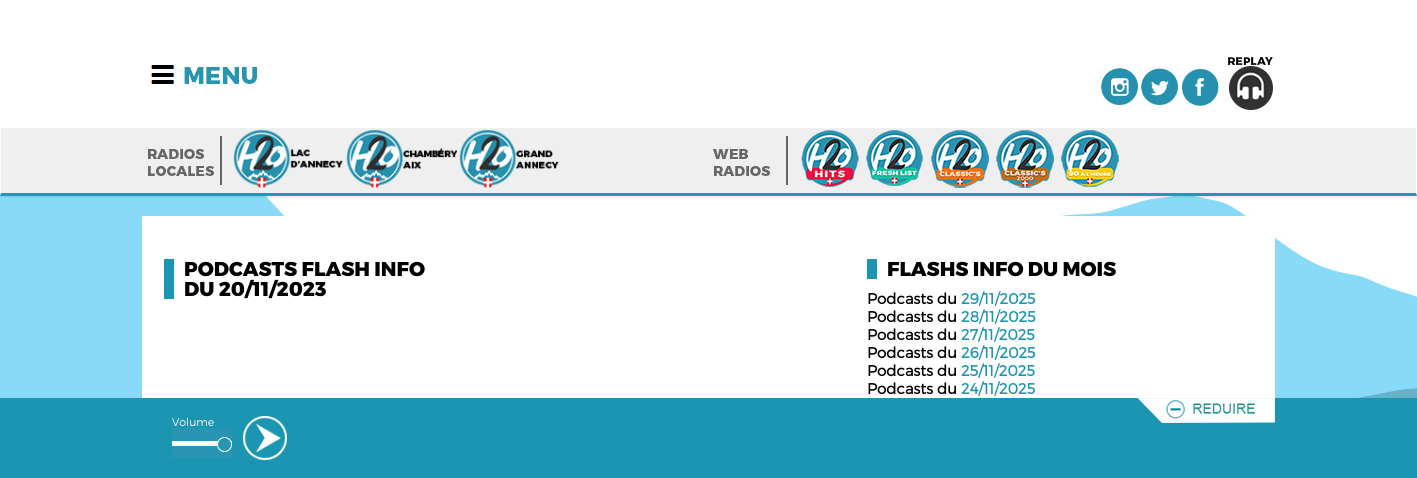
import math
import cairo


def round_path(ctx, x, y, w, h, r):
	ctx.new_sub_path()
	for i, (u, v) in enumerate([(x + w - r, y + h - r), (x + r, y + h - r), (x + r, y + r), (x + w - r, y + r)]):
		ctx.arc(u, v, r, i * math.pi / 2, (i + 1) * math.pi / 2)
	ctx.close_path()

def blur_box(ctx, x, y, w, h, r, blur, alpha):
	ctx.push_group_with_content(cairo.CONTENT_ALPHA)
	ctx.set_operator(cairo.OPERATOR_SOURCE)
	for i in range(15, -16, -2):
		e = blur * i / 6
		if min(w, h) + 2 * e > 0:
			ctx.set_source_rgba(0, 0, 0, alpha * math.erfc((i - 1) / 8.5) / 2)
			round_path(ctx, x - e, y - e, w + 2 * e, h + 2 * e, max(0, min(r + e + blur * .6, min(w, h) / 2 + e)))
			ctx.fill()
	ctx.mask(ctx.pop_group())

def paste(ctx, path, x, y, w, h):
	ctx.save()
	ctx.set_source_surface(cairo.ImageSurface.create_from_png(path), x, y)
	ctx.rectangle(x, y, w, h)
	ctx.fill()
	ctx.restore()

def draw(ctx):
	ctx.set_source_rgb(1, 1, 1)
	ctx.paint()
	paste(ctx, 'media/1.png', 0, 196, 1417, 202)
	ctx.save()
	ctx.rectangle(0, 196, 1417, 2)
	ctx.clip()
	ctx.set_source_rgb(0, 0, 0)
	blur_box(ctx, 1, 1, 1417, 196, 0, 1.5, 0.1)
	ctx.restore()
	ctx.set_source_rgb(0.157, 0.588, 0.698)
	ctx.new_path()
	ctx.move_to(1417, 196)
	ctx.line_to(0, 196)
	ctx.line_to(1, 193)
	ctx.line_to(1416, 193)
	ctx.close_path()
	ctx.fill()
	paste(ctx, 'media/2.png', 151, 65, 111, 22)
	paste(ctx, 'media/3.png', 1101, 68, 37, 37)
	paste(ctx, 'media/4.png', 1141, 68, 37, 37)
	paste(ctx, 'media/5.png', 1182, 69, 37, 37)
	paste(ctx, 'media/6.png', 1227, 56, 48, 62)
	ctx.set_source_rgb(0.937, 0.937, 0.937)
	ctx.rectangle(1, 128, 1415, 65)
	ctx.fill()
	paste(ctx, 'media/7.png', 148, 136, 74, 49)
	paste(ctx, 'media/8.png', 233, 129, 110, 59)
	paste(ctx, 'media/9.png', 346, 129, 111, 59)
	paste(ctx, 'media/10.png', 459, 129, 100, 59)
	paste(ctx, 'media/11.png', 713, 136, 75, 49)
	paste(ctx, 'media/12.png', 801, 130, 58, 57)
	paste(ctx, 'media/13.png', 866, 130, 57, 56)
	paste(ctx, 'media/14.png', 931, 130, 58, 58)
	paste(ctx, 'media/15.png', 996, 130, 58, 58)
	paste(ctx, 'media/16.png', 1061, 130, 58, 57)
	ctx.set_source_rgb(1, 1, 1)
	ctx.rectangle(142, 216, 1133, 182)
	ctx.fill()
	ctx.set_source_rgb(0.11, 0.584, 0.698)
	ctx.rectangle(164, 259, 10, 40)
	ctx.fill()
	ctx.select_font_face('Montserrat ExtraBold')
	ctx.set_font_size(20)
	ctx.set_source_rgb(0, 0, 0)
	ctx.move_to(184, 276)
	ctx.show_text('PODCASTS FLASH INFO')
	ctx.move_to(184, 296)
	ctx.show_text('DU 20/11/2023')
	ctx.set_source_rgb(0.11, 0.584, 0.698)
	ctx.rectangle(867, 259, 10, 20)
	ctx.fill()
	ctx.set_source_rgb(0, 0, 0)
	ctx.move_to(887, 276)
	ctx.show_text('FLASHS INFO DU MOIS')
	ctx.select_font_face('Montserrat', cairo.FONT_SLANT_NORMAL, cairo.FONT_WEIGHT_BOLD)
	ctx.set_font_size(15)
	ctx.move_to(867, 304)
	ctx.show_text('Podcasts du')
	ctx.set_source_rgb(0.11, 0.584, 0.698)
	ctx.move_to(961, 304)
	ctx.show_text('29/11/2025')
	ctx.set_source_rgb(0, 0, 0)
	ctx.move_to(867, 322)
	ctx.show_text('Podcasts du')
	ctx.set_source_rgb(0.11, 0.584, 0.698)
	ctx.move_to(961, 322)
	ctx.show_text('28/11/2025')
	ctx.set_source_rgb(0, 0, 0)
	ctx.move_to(867, 340)
	ctx.show_text('Podcasts du')
	ctx.set_source_rgb(0.11, 0.584, 0.698)
	ctx.move_to(961, 340)
	ctx.show_text('27/11/2025')
	ctx.set_source_rgb(0, 0, 0)
	ctx.move_to(867, 358)
	ctx.show_text('Podcasts du')
	ctx.set_source_rgb(0.11, 0.584, 0.698)
	ctx.move_to(961, 358)
	ctx.show_text('26/11/2025')
	ctx.set_source_rgb(0, 0, 0)
	ctx.move_to(867, 376)
	ctx.show_text('Podcasts du')
	ctx.set_source_rgb(0.11, 0.584, 0.698)
	ctx.move_to(961, 376)
	ctx.show_text('25/11/2025')
	ctx.set_source_rgb(0, 0, 0)
	ctx.move_to(867, 394)
	ctx.show_text('Podcasts du')
	ctx.set_source_rgb(0.11, 0.584, 0.698)
	ctx.move_to(961, 394)
	ctx.show_text('24/11/2025')
	ctx.rectangle(0, 398, 1417, 80)
	ctx.fill()
	ctx.select_font_face('Montserrat Light')
	ctx.set_font_size(11)
	ctx.set_source_rgb(1, 1, 1)
	ctx.move_to(172, 426)
	ctx.show_text('Volume')
	ctx.set_source_rgb(0.157, 0.588, 0.698)
	ctx.rectangle(172, 428, 60, 30)
	ctx.fill()
	ctx.set_source_rgb(1, 1, 1)
	ctx.rectangle(172, 441, 60, 5)
	ctx.fill()
	ctx.set_source_rgb(0.157, 0.588, 0.698)
	ctx.arc(224.5, 444.5, 7, 0, 2 * math.pi)
	ctx.fill_preserve()
	ctx.set_source_rgb(1, 1, 1)
	ctx.set_line_width(1)
	ctx.stroke()
	paste(ctx, 'media/17.png', 243, 416, 44, 44)
	paste(ctx, 'media/18.png', 1137, 398, 138, 25)


surface = cairo.ImageSurface(cairo.FORMAT_RGB24, 1417, 478)
ctx = cairo.Context(surface)
options = cairo.FontOptions()
options.set_hint_metrics(cairo.HINT_METRICS_OFF)
options.set_hint_style(cairo.HINT_STYLE_NONE)
ctx.set_font_options(options)
ctx.set_miter_limit(4)
draw(ctx)
surface.write_to_png('image.png')
